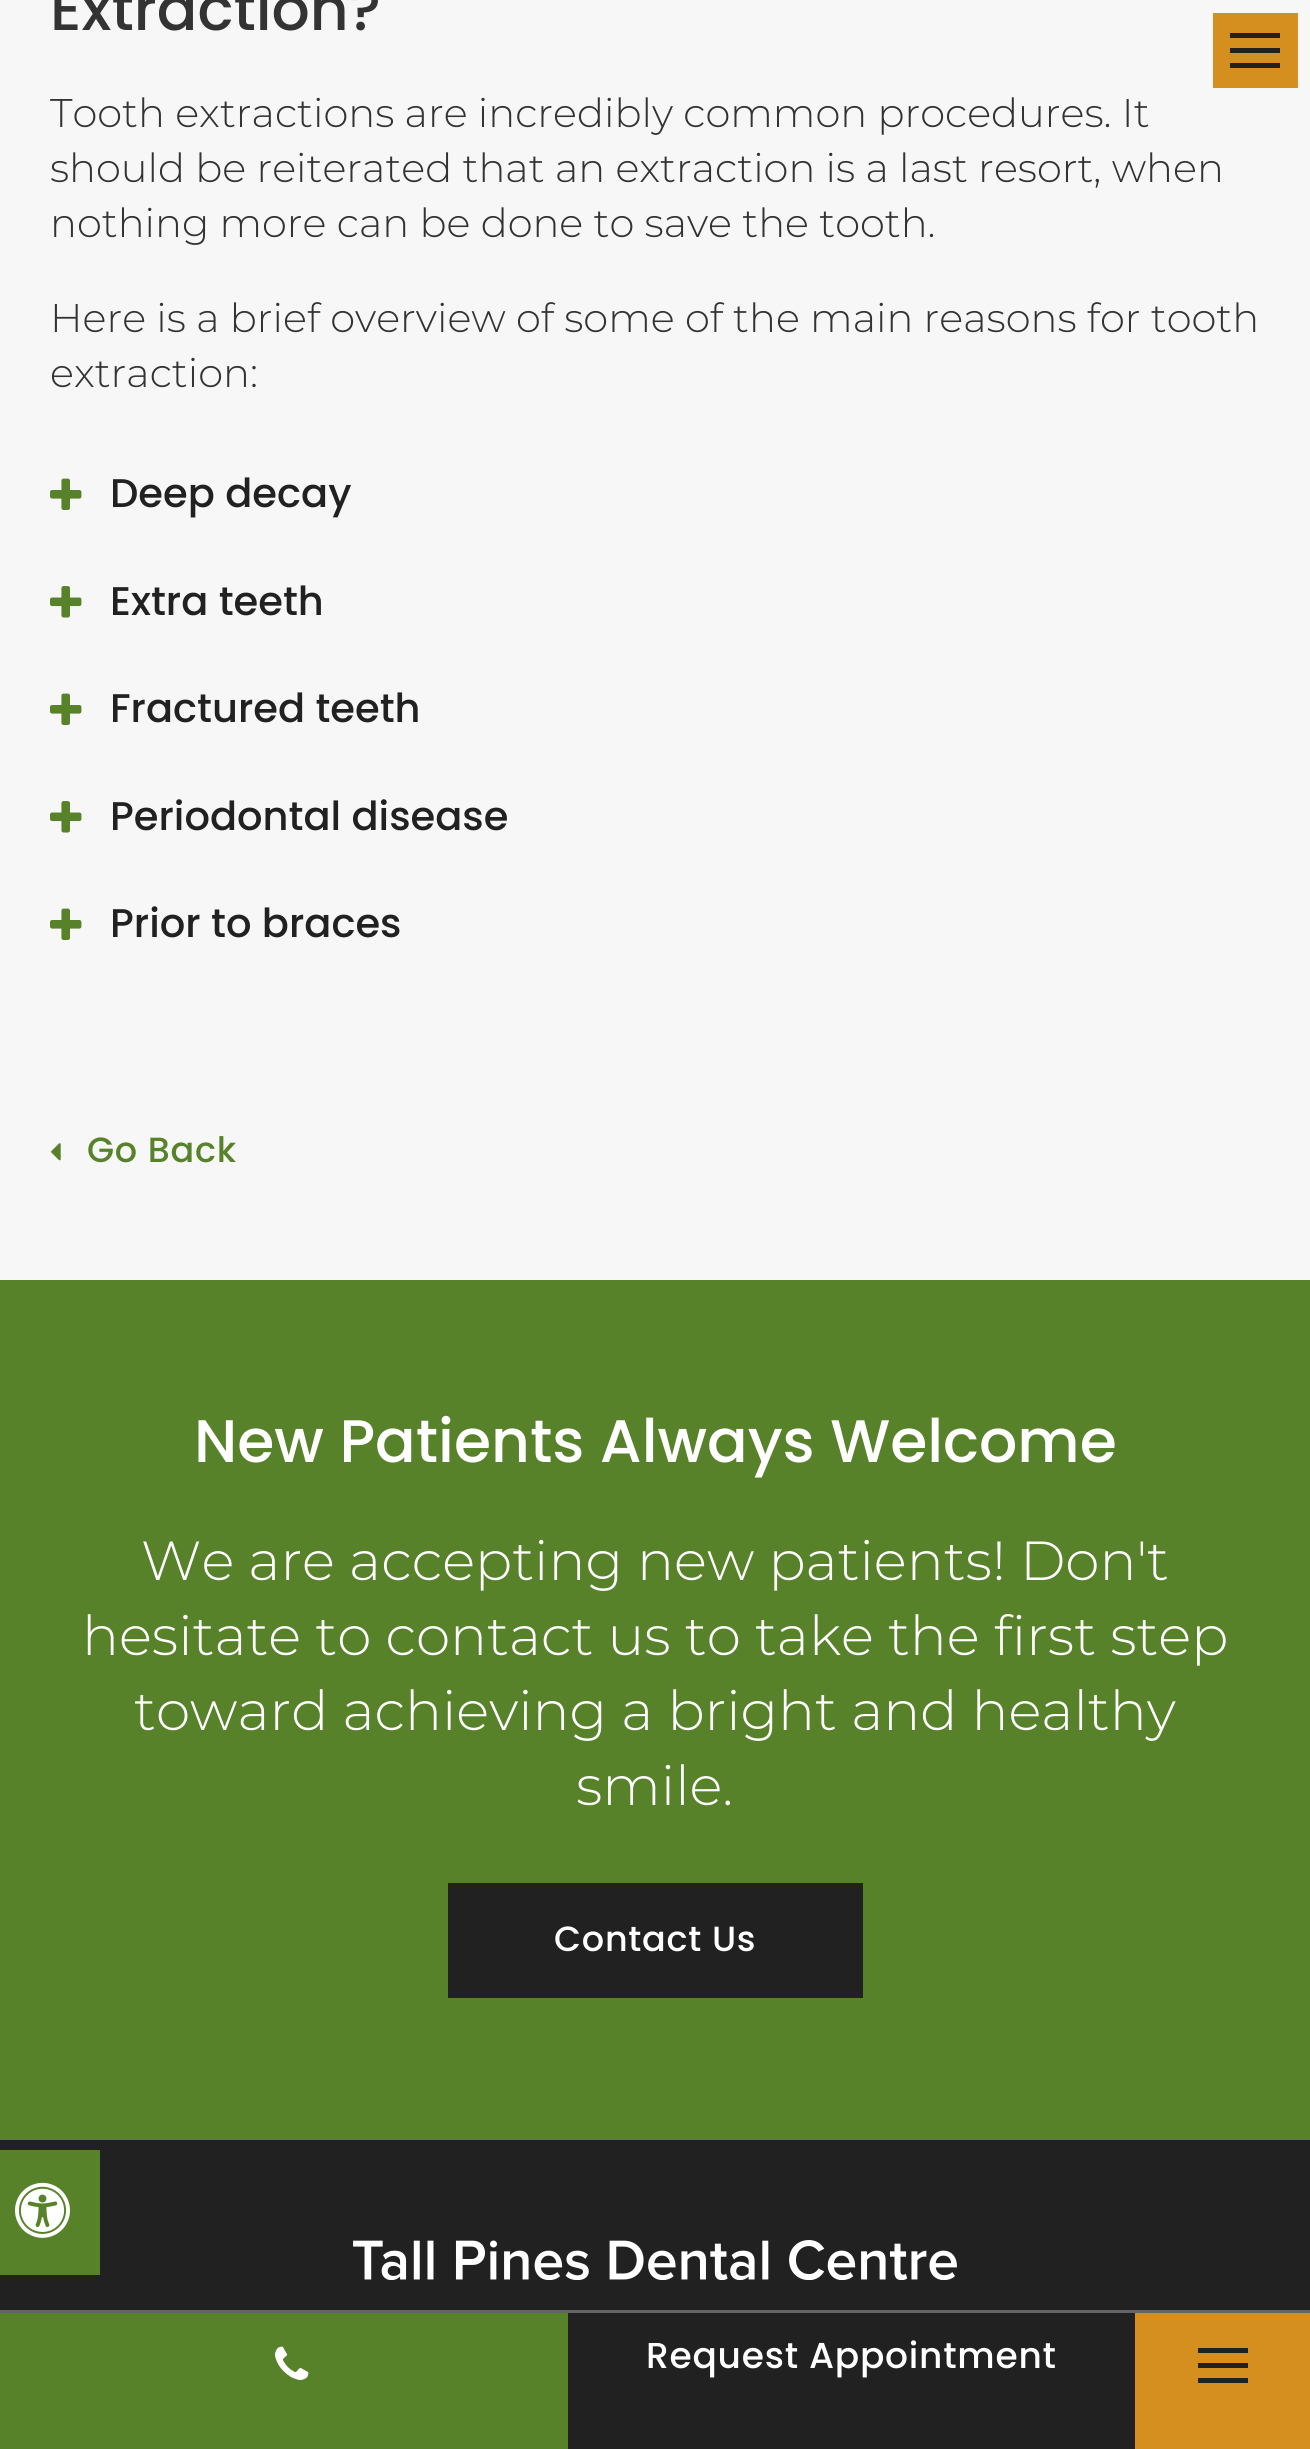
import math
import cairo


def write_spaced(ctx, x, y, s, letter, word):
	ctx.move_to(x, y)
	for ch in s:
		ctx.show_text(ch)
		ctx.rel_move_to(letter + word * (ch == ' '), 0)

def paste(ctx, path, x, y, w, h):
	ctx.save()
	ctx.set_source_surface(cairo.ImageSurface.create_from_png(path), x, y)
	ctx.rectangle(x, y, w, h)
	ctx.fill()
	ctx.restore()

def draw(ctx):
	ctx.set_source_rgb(0.965, 0.965, 0.965)
	ctx.paint()
	ctx.select_font_face('Poppins Medium')
	ctx.set_font_size(60)
	ctx.set_source_rgb(0.2, 0.2, 0.2)
	ctx.move_to(50, 30)
	ctx.show_text('Extraction?')
	ctx.select_font_face('Montserrat Light')
	ctx.set_font_size(40)
	for x, y, s in [
		(50, 127, 'Tooth extractions are incredibly common procedures. It'),
		(50, 182, 'should be reiterated that an extraction is a last resort, when'),
		(50, 237, 'nothing more can be done to save the tooth.'),
		(50, 332, 'Here is a brief overview of some of the main reasons for tooth'),
		(50, 387, 'extraction:'),
	]:
		ctx.move_to(x, y)
		ctx.show_text(s)
	paste(ctx, 'media/1.png', 50, 478, 32, 32)
	ctx.select_font_face('Poppins Medium')
	ctx.set_source_rgb(0.129, 0.129, 0.129)
	ctx.move_to(110, 507)
	ctx.show_text('Deep decay')
	paste(ctx, 'media/2.png', 50, 586, 32, 32)
	ctx.move_to(110, 615)
	ctx.show_text('Extra teeth')
	paste(ctx, 'media/1.png', 50, 693, 32, 32)
	ctx.move_to(110, 722)
	ctx.show_text('Fractured teeth')
	paste(ctx, 'media/2.png', 50, 801, 32, 32)
	ctx.move_to(110, 830)
	ctx.show_text('Periodontal disease')
	paste(ctx, 'media/1.png', 50, 908, 32, 32)
	ctx.move_to(110, 937)
	ctx.show_text('Prior to braces')
	paste(ctx, 'media/3.png', 51, 1143, 10, 18)
	ctx.set_font_size(35)
	ctx.set_source_rgb(0.341, 0.51, 0.165)
	write_spaced(ctx, 87, 1162, 'Go Back', 0.75, 0)
	ctx.set_source_rgb(0.835, 0.561, 0.122)
	ctx.rectangle(1213, 13, 85, 75)
	ctx.fill()
	ctx.set_source_rgb(0.129, 0.129, 0.129)
	ctx.rectangle(1230, 33, 50, 5)
	ctx.rectangle(1230, 48, 50, 5)
	ctx.rectangle(1230, 63, 50, 5)
	ctx.fill()
	ctx.set_source_rgb(0.341, 0.51, 0.165)
	ctx.rectangle(0, 1280, 1310, 860)
	ctx.fill()
	ctx.set_font_size(60)
	ctx.set_source_rgb(1, 1, 1)
	ctx.move_to(194, 1462)
	ctx.show_text('New Patients Always Welcome')
	ctx.select_font_face('Montserrat Light')
	ctx.set_font_size(55)
	for x, y, s in [
		(141, 1580, 'We are accepting new patients! Don\'t'),
		(82, 1655, 'hesitate to contact us to take the first step'),
		(134, 1730, 'toward achieving a bright and healthy'),
		(576, 1805, 'smile.'),
	]:
		ctx.move_to(x, y)
		ctx.show_text(s)
	ctx.set_source_rgb(0.129, 0.129, 0.129)
	ctx.rectangle(448, 1883, 415, 115)
	ctx.fill()
	ctx.select_font_face('Poppins Medium')
	ctx.set_font_size(35)
	ctx.set_source_rgb(1, 1, 1)
	write_spaced(ctx, 554, 1951, 'Contact Us', 0.75, 0)
	ctx.set_source_rgb(0.129, 0.129, 0.129)
	ctx.rectangle(0, 2140, 1310, 170)
	ctx.fill()
	paste(ctx, 'media/4.png', 353, 2240, 604, 40)
	ctx.set_source_rgb(0.341, 0.51, 0.165)
	ctx.rectangle(0, 2150, 100, 125)
	ctx.fill()
	paste(ctx, 'media/5.png', 15, 2182, 55, 56)
	ctx.set_source_rgb(0.392, 0.392, 0.392)
	ctx.rectangle(0, 2310, 1310, 3)
	ctx.fill()
	ctx.set_source_rgb(0.341, 0.51, 0.165)
	ctx.rectangle(0, 2313, 568, 136)
	ctx.fill()
	paste(ctx, 'media/6.png', 275, 2346, 34, 34)
	ctx.set_source_rgb(0.129, 0.129, 0.129)
	ctx.rectangle(568, 2313, 567, 136)
	ctx.fill()
	ctx.set_font_size(36)
	ctx.set_source_rgb(1, 1, 1)
	write_spaced(ctx, 646, 2368, 'Request Appointment', 0.75, 0)
	ctx.set_source_rgb(0.835, 0.561, 0.122)
	ctx.rectangle(1135, 2313, 175, 136)
	ctx.fill()
	ctx.set_source_rgb(0.129, 0.129, 0.129)
	ctx.rectangle(1198, 2348, 50, 5)
	ctx.rectangle(1198, 2363, 50, 5)
	ctx.rectangle(1198, 2378, 50, 5)
	ctx.fill()


surface = cairo.ImageSurface(cairo.FORMAT_RGB24, 1310, 2449)
ctx = cairo.Context(surface)
options = cairo.FontOptions()
options.set_hint_metrics(cairo.HINT_METRICS_OFF)
options.set_hint_style(cairo.HINT_STYLE_NONE)
ctx.set_font_options(options)
ctx.set_miter_limit(4)
draw(ctx)
surface.write_to_png('image.png')
